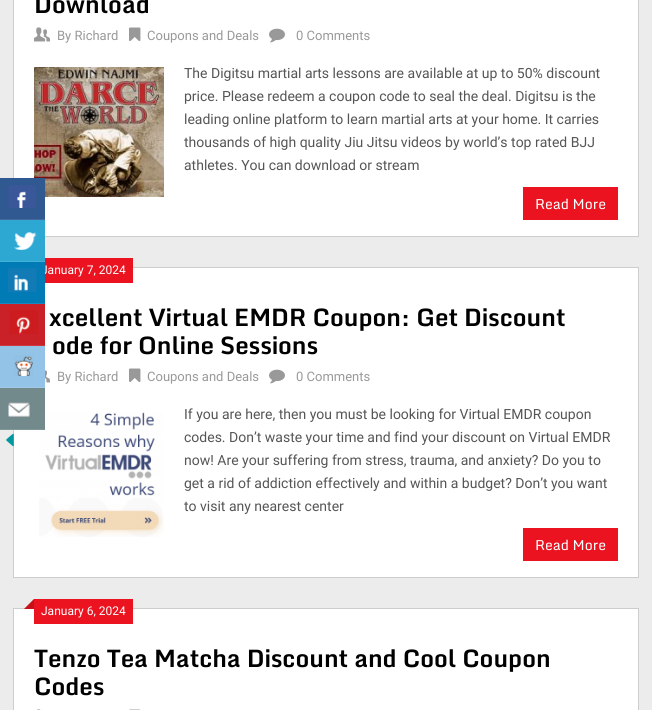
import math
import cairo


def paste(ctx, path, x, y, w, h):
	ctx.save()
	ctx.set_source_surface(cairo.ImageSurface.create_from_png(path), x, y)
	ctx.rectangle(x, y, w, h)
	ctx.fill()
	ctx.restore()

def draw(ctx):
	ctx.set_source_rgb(0.922, 0.922, 0.922)
	ctx.paint()
	ctx.set_source_rgb(1, 1, 1)
	ctx.rectangle(13.5, -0.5, 625, 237)
	ctx.fill_preserve()
	ctx.set_source_rgb(0.804, 0.804, 0.804)
	ctx.set_line_width(1)
	ctx.stroke()
	paste(ctx, 'media/11.png', 34, 67, 130, 130)
	ctx.set_source_rgb(0.188, 0.345, 0.569)
	ctx.rectangle(0, 178, 45, 41)
	ctx.fill()
	ctx.set_source_rgb(0.271, 0.412, 0.612)
	ctx.rectangle(0, 219, 45, 1)
	ctx.fill()
	paste(ctx, 'media/1.png', 8, 185, 28, 23)
	ctx.set_source_rgb(0.173, 0.659, 0.824)
	ctx.rectangle(0, 220, 45, 41)
	ctx.fill()
	ctx.set_source_rgb(0.255, 0.694, 0.843)
	ctx.rectangle(0, 261, 45, 1)
	ctx.fill()
	paste(ctx, 'media/2.png', 14, 232, 23, 18)
	ctx.set_source_rgb(1, 1, 1)
	ctx.rectangle(13.5, 267.5, 625, 310)
	ctx.fill_preserve()
	ctx.set_source_rgb(0.804, 0.804, 0.804)
	ctx.stroke()
	ctx.set_source_rgb(0.918, 0.078, 0.122)
	ctx.rectangle(45, 258, 88, 25)
	ctx.fill()
	ctx.select_font_face('Roboto')
	ctx.set_font_size(12)
	ctx.set_source_rgb(1, 1, 1)
	ctx.move_to(41, 274)
	ctx.show_text('January 7, 2024')
	ctx.set_source_rgb(0, 0.482, 0.714)
	ctx.rectangle(0, 262, 45, 41)
	ctx.fill()
	ctx.set_source_rgb(0.102, 0.533, 0.741)
	ctx.rectangle(0, 303, 45, 1)
	ctx.fill()
	paste(ctx, 'media/3.png', 8, 268, 29, 24)
	ctx.set_source_rgb(0.792, 0.125, 0.153)
	ctx.rectangle(0, 304, 45, 41)
	ctx.fill()
	ctx.set_source_rgb(0.812, 0.212, 0.239)
	ctx.rectangle(0, 345, 45, 1)
	ctx.fill()
	paste(ctx, 'media/4.png', 9, 310, 29, 24)
	ctx.set_source_rgb(0.576, 0.765, 0.902)
	ctx.rectangle(0, 346, 45, 41)
	ctx.fill()
	ctx.set_source_rgb(0.62, 0.788, 0.914)
	ctx.rectangle(0, 387, 45, 1)
	ctx.fill()
	paste(ctx, 'media/5.png', 14, 355, 19, 21)
	paste(ctx, 'media/13.png', 39, 412, 125, 125)
	ctx.set_source_rgb(0.451, 0.541, 0.553)
	ctx.rectangle(0, 388, 45, 41)
	ctx.fill()
	ctx.set_source_rgb(0.506, 0.588, 0.596)
	ctx.rectangle(0, 429, 45, 1)
	ctx.fill()
	paste(ctx, 'media/6.png', 8, 402, 22, 15)
	paste(ctx, 'media/7.png', 6, 433, 8, 14)
	ctx.select_font_face('Monda', cairo.FONT_SLANT_NORMAL, cairo.FONT_WEIGHT_BOLD)
	ctx.set_font_size(24)
	ctx.set_source_rgb(0, 0, 0)
	ctx.move_to(34, 13)
	ctx.show_text('Download')
	paste(ctx, 'media/8.png', 34, 27, 16, 15)
	ctx.select_font_face('Roboto')
	ctx.set_font_size(13)
	ctx.set_source_rgb(0.6, 0.6, 0.6)
	ctx.move_to(57, 40)
	ctx.show_text('By Richard')
	paste(ctx, 'media/9.png', 129, 27, 12, 14)
	ctx.move_to(147, 40)
	ctx.show_text('Coupons and Deals')
	paste(ctx, 'media/10.png', 269, 28, 16, 15)
	ctx.move_to(296, 40)
	ctx.show_text('0 Comments')
	ctx.set_font_size(14)
	ctx.set_source_rgb(0.333, 0.333, 0.333)
	for x, y, s in [
		(184, 78, 'The Digitsu martial arts lessons are available at up to 50% discount'),
		(184, 101, 'price. Please redeem a coupon code to seal the deal. Digitsu is the'),
		(184, 124, 'leading online platform to learn martial arts at your home. It carries'),
		(184, 147, 'thousands of high quality Jiu Jitsu videos by world’s top rated BJJ'),
		(184, 170, 'athletes. You can download or stream'),
	]:
		ctx.move_to(x, y)
		ctx.show_text(s)
	ctx.set_source_rgb(0.918, 0.078, 0.122)
	ctx.rectangle(523, 187, 95, 33)
	ctx.fill()
	ctx.select_font_face('Monda')
	ctx.set_source_rgb(1, 1, 1)
	ctx.move_to(535, 209)
	ctx.show_text('Read More')
	ctx.select_font_face('Monda', cairo.FONT_SLANT_NORMAL, cairo.FONT_WEIGHT_BOLD)
	ctx.set_font_size(24)
	ctx.set_source_rgb(0, 0, 0)
	ctx.move_to(49, 326)
	ctx.show_text('xcellent Virtual EMDR Coupon: Get Discount')
	ctx.move_to(52, 354)
	ctx.show_text('ode for Online Sessions')
	paste(ctx, 'media/12.png', 45, 370, 5, 13)
	ctx.select_font_face('Roboto')
	ctx.set_font_size(13)
	ctx.set_source_rgb(0.6, 0.6, 0.6)
	ctx.move_to(57, 381)
	ctx.show_text('By Richard')
	paste(ctx, 'media/9.png', 129, 368, 12, 14)
	ctx.move_to(147, 381)
	ctx.show_text('Coupons and Deals')
	paste(ctx, 'media/10.png', 269, 369, 16, 15)
	ctx.move_to(296, 381)
	ctx.show_text('0 Comments')
	ctx.set_font_size(14)
	ctx.set_source_rgb(0.333, 0.333, 0.333)
	for x, y, s in [
		(184, 419, 'If you are here, then you must be looking for Virtual EMDR coupon'),
		(184, 442, 'codes. Don’t waste your time and find your discount on Virtual EMDR'),
		(184, 465, 'now! Are your suffering from stress, trauma, and anxiety? Do you to'),
		(184, 488, 'get a rid of addiction effectively and within a budget? Don’t you want'),
		(184, 511, 'to visit any nearest center'),
	]:
		ctx.move_to(x, y)
		ctx.show_text(s)
	ctx.set_source_rgb(0.918, 0.078, 0.122)
	ctx.rectangle(523, 528, 95, 33)
	ctx.fill()
	ctx.select_font_face('Monda')
	ctx.set_source_rgb(1, 1, 1)
	ctx.move_to(535, 550)
	ctx.show_text('Read More')
	ctx.rectangle(13.5, 608.5, 625, 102)
	ctx.fill_preserve()
	ctx.set_source_rgb(0.804, 0.804, 0.804)
	ctx.stroke()
	ctx.set_source_rgb(0.918, 0.078, 0.122)
	ctx.rectangle(34, 599, 99, 25)
	ctx.fill()
	ctx.new_path()
	ctx.move_to(34, 609)
	ctx.line_to(24, 609)
	ctx.line_to(34, 599)
	ctx.close_path()
	ctx.fill()
	ctx.set_source_rgba(0, 0, 0, 0.15)
	ctx.new_path()
	ctx.move_to(34, 609)
	ctx.line_to(24, 609)
	ctx.line_to(34, 599)
	ctx.close_path()
	ctx.fill()
	ctx.select_font_face('Roboto')
	ctx.set_font_size(12)
	ctx.set_source_rgb(1, 1, 1)
	ctx.move_to(41, 615)
	ctx.show_text('January 6, 2024')
	ctx.select_font_face('Monda', cairo.FONT_SLANT_NORMAL, cairo.FONT_WEIGHT_BOLD)
	ctx.set_font_size(24)
	ctx.set_source_rgb(0, 0, 0)
	ctx.move_to(34, 667)
	ctx.show_text('Tenzo Tea Matcha Discount and Cool Coupon')
	ctx.move_to(34, 695)
	ctx.show_text('Codes')
	paste(ctx, 'media/14.png', 37, 709, 4, 1)
	paste(ctx, 'media/15.png', 129, 709, 11, 1)


surface = cairo.ImageSurface(cairo.FORMAT_RGB24, 652, 710)
ctx = cairo.Context(surface)
options = cairo.FontOptions()
options.set_hint_metrics(cairo.HINT_METRICS_OFF)
options.set_hint_style(cairo.HINT_STYLE_NONE)
ctx.set_font_options(options)
ctx.set_miter_limit(4)
draw(ctx)
surface.write_to_png('image.png')
